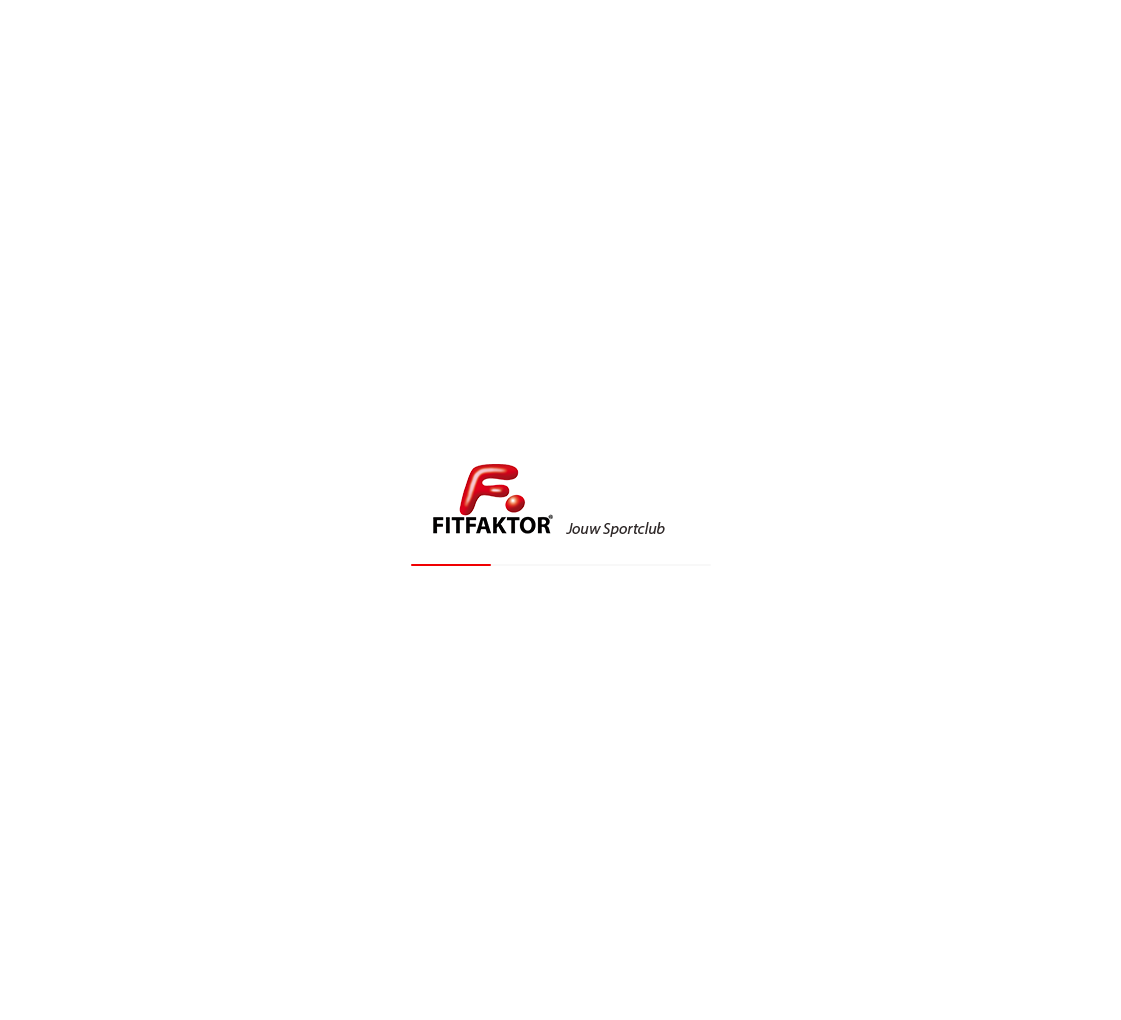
import math
import cairo


def round_path(ctx, x, y, w, h, r):
	ctx.new_sub_path()
	for i, (u, v) in enumerate([(x + w - r, y + h - r), (x + r, y + h - r), (x + r, y + r), (x + w - r, y + r)]):
		ctx.arc(u, v, r, i * math.pi / 2, (i + 1) * math.pi / 2)
	ctx.close_path()

def paste(ctx, path, x, y, w, h):
	ctx.save()
	ctx.set_source_surface(cairo.ImageSurface.create_from_png(path), x, y)
	ctx.rectangle(x, y, w, h)
	ctx.fill()
	ctx.restore()

def draw(ctx):
	ctx.set_source_rgb(1, 1, 1)
	ctx.paint()
	paste(ctx, 'media/1.png', 433, 464, 232, 73)
	ctx.set_source_rgb(0.969, 0.969, 0.969)
	round_path(ctx, 411, 564, 300, 2, 1)
	ctx.fill()
	ctx.set_source_rgb(0.941, 0, 0.008)
	round_path(ctx, 411, 564, 80, 2, 1)
	ctx.fill()


surface = cairo.ImageSurface(cairo.FORMAT_RGB24, 1121, 1020)
ctx = cairo.Context(surface)
options = cairo.FontOptions()
options.set_hint_metrics(cairo.HINT_METRICS_OFF)
options.set_hint_style(cairo.HINT_STYLE_NONE)
ctx.set_font_options(options)
ctx.set_miter_limit(4)
draw(ctx)
surface.write_to_png('image.png')
